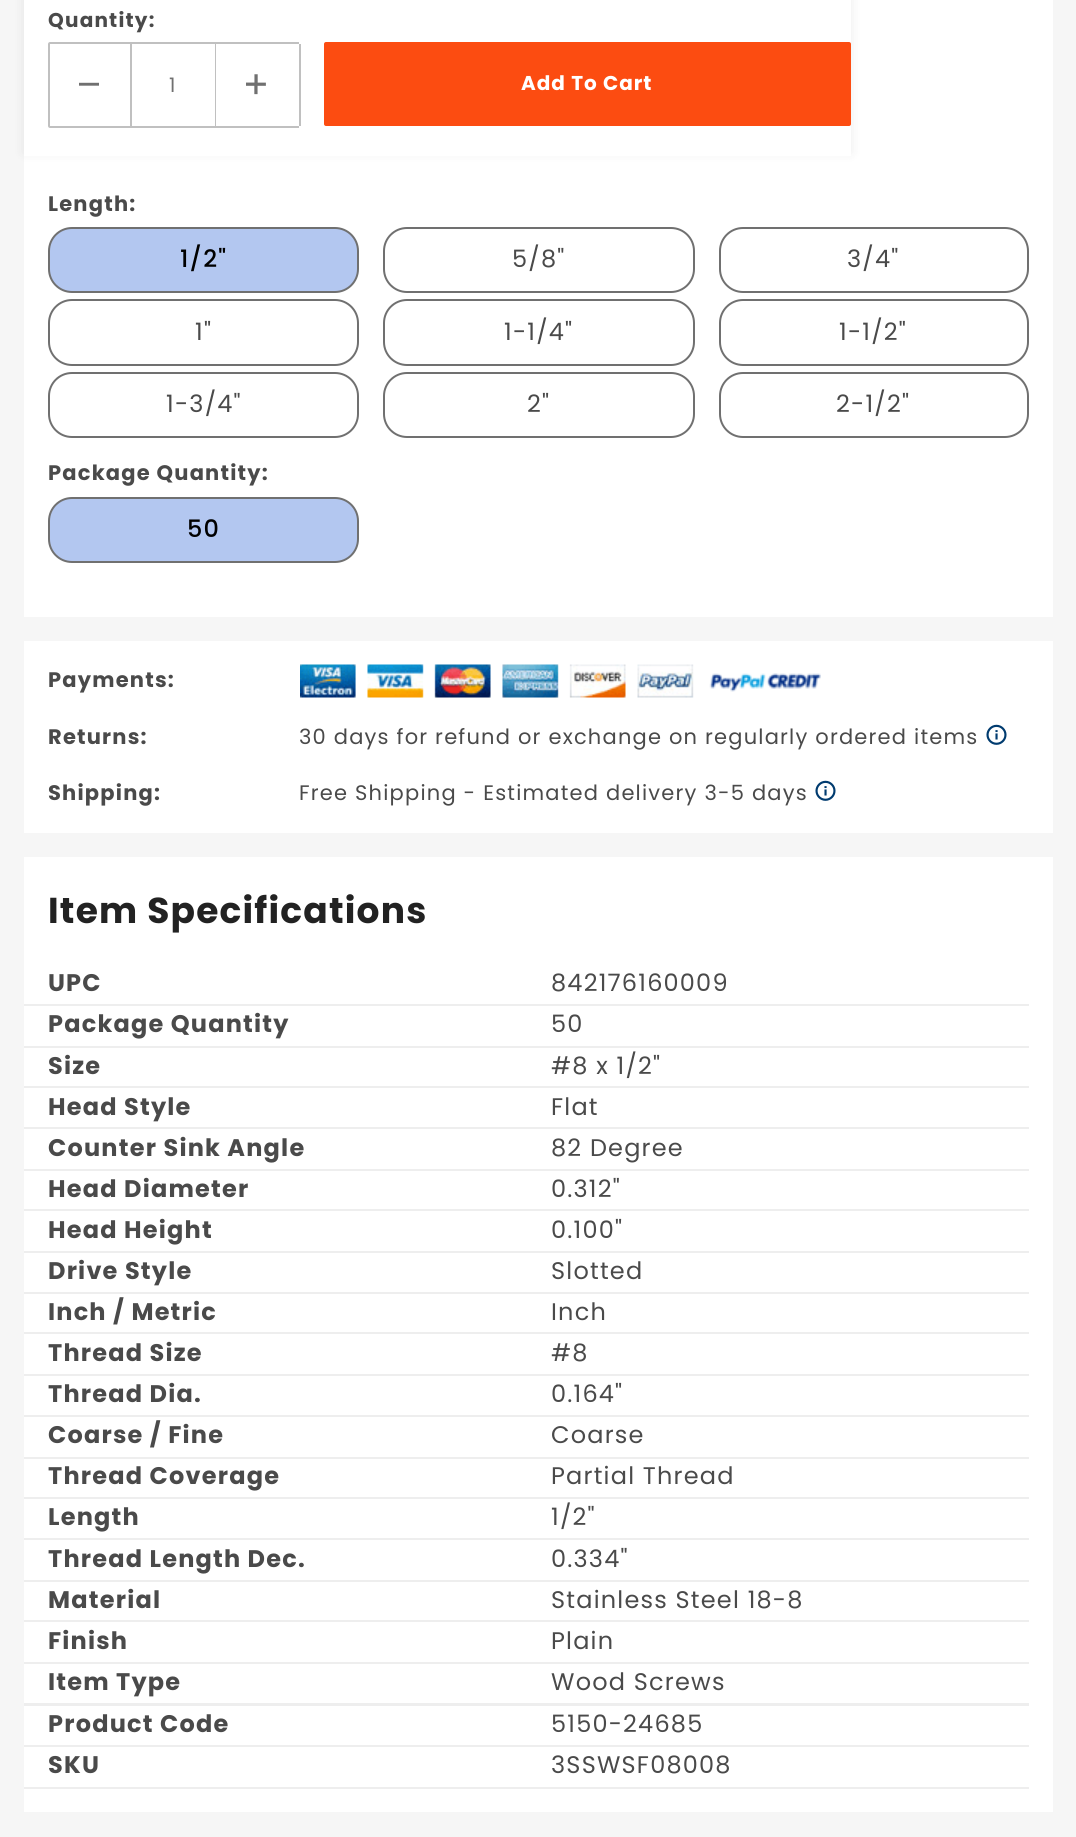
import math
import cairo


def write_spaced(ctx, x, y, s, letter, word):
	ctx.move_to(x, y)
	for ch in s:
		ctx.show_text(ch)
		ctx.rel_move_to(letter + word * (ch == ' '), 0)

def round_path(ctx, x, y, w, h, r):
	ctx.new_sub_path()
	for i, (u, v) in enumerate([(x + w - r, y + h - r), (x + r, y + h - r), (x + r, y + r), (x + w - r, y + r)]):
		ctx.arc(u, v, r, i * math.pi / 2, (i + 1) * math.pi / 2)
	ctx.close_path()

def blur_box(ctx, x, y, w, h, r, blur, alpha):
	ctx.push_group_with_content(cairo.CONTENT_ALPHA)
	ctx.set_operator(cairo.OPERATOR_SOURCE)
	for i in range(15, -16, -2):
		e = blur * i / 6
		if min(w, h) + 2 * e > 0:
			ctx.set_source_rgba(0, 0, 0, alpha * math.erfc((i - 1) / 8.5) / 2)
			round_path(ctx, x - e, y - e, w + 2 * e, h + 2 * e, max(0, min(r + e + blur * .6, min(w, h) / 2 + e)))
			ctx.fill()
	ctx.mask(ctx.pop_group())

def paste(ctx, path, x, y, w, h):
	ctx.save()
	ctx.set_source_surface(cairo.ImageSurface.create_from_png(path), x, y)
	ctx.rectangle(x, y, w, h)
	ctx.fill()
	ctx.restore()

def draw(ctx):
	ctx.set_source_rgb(0.961, 0.961, 0.961)
	ctx.paint()
	ctx.set_source_rgb(1, 1, 1)
	ctx.rectangle(24, 0, 1029, 617)
	ctx.fill()
	ctx.set_source_rgb(0.502, 0.502, 0.502)
	blur_box(ctx, 24, -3, 827, 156, 0, 6, 0.15)
	ctx.set_source_rgb(1, 1, 1)
	ctx.rectangle(24, 0, 827, 156)
	ctx.fill()
	ctx.select_font_face('Poppins', cairo.FONT_SLANT_NORMAL, cairo.FONT_WEIGHT_BOLD)
	ctx.set_font_size(20)
	ctx.set_source_rgb(0.29, 0.29, 0.29)
	write_spaced(ctx, 48, 27, 'Quantity:', 1.2, 0)
	ctx.new_path()
	ctx.move_to(50, 43)
	ctx.line_to(131, 43)
	ctx.line_to(131, 127)
	ctx.line_to(50, 127)
	ctx.curve_to(49.5, 127, 49, 126.5, 49, 126)
	ctx.line_to(49, 44)
	ctx.curve_to(49, 43.5, 49.5, 43, 50, 43)
	ctx.close_path()
	ctx.set_source_rgb(0.753, 0.753, 0.753)
	ctx.stroke()
	ctx.select_font_face('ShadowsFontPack')
	ctx.set_source_rgb(0.439, 0.439, 0.439)
	write_spaced(ctx, 79, 93, '<', 1, 0)
	ctx.set_source_rgb(0.753, 0.753, 0.753)
	ctx.rectangle(132, 42, 167, 2)
	ctx.rectangle(215, 42, 1, 86)
	ctx.rectangle(132, 126, 167, 2)
	ctx.fill()
	ctx.select_font_face('Poppins')
	ctx.set_source_rgb(0.439, 0.439, 0.439)
	write_spaced(ctx, 169, 92, '1', 1, 0)
	ctx.set_source_rgb(0.753, 0.753, 0.753)
	ctx.rectangle(299, 44, 2, 82)
	ctx.fill()
	ctx.select_font_face('ShadowsFontPack')
	ctx.set_source_rgb(0.439, 0.439, 0.439)
	write_spaced(ctx, 246, 93, '=', 1, 0)
	ctx.set_source_rgb(0.988, 0.298, 0.067)
	round_path(ctx, 324, 42, 527, 84, 2)
	ctx.fill()
	ctx.select_font_face('Poppins', cairo.FONT_SLANT_NORMAL, cairo.FONT_WEIGHT_BOLD)
	ctx.set_source_rgb(1, 1, 1)
	write_spaced(ctx, 521, 90, 'Add To Cart', 1, 0)
	ctx.set_font_size(21)
	ctx.set_source_rgb(0.29, 0.29, 0.29)
	write_spaced(ctx, 48, 211, 'Length:', 1.2, 0)
	ctx.set_source_rgb(0.702, 0.78, 0.941)
	round_path(ctx, 49, 228, 309, 64, 23)
	ctx.fill_preserve()
	ctx.set_source_rgb(0.439, 0.439, 0.439)
	ctx.stroke()
	ctx.select_font_face('Poppins Medium')
	ctx.set_font_size(24)
	ctx.set_source_rgb(0, 0, 0)
	write_spaced(ctx, 180, 267, '1/2"', 1.2, 0)
	round_path(ctx, 384, 228, 310, 64, 23)
	ctx.set_source_rgb(0.439, 0.439, 0.439)
	ctx.stroke()
	ctx.select_font_face('Poppins')
	ctx.set_source_rgb(0.29, 0.29, 0.29)
	write_spaced(ctx, 512, 267, '5/8"', 1.2, 0)
	round_path(ctx, 720, 228, 308, 64, 23)
	ctx.set_source_rgb(0.439, 0.439, 0.439)
	ctx.stroke()
	ctx.set_source_rgb(0.29, 0.29, 0.29)
	write_spaced(ctx, 847, 267, '3/4"', 1.2, 0)
	round_path(ctx, 49, 300, 309, 65, 23)
	ctx.set_source_rgb(0.439, 0.439, 0.439)
	ctx.stroke()
	ctx.set_source_rgb(0.29, 0.29, 0.29)
	write_spaced(ctx, 195, 340, '1"', 1.2, 0)
	round_path(ctx, 384, 300, 310, 65, 23)
	ctx.set_source_rgb(0.439, 0.439, 0.439)
	ctx.stroke()
	ctx.set_source_rgb(0.29, 0.29, 0.29)
	write_spaced(ctx, 504, 340, '1-1/4"', 1.2, 0)
	round_path(ctx, 720, 300, 308, 65, 23)
	ctx.set_source_rgb(0.439, 0.439, 0.439)
	ctx.stroke()
	ctx.set_source_rgb(0.29, 0.29, 0.29)
	write_spaced(ctx, 839, 340, '1-1/2"', 1.2, 0)
	round_path(ctx, 49, 373, 309, 64, 23)
	ctx.set_source_rgb(0.439, 0.439, 0.439)
	ctx.stroke()
	ctx.set_source_rgb(0.29, 0.29, 0.29)
	write_spaced(ctx, 166, 412, '1-3/4"', 1.2, 0)
	round_path(ctx, 384, 373, 310, 64, 23)
	ctx.set_source_rgb(0.439, 0.439, 0.439)
	ctx.stroke()
	ctx.set_source_rgb(0.29, 0.29, 0.29)
	write_spaced(ctx, 527, 412, '2"', 1.2, 0)
	round_path(ctx, 720, 373, 308, 64, 23)
	ctx.set_source_rgb(0.439, 0.439, 0.439)
	ctx.stroke()
	ctx.set_source_rgb(0.29, 0.29, 0.29)
	write_spaced(ctx, 836, 412, '2-1/2"', 1.2, 0)
	ctx.select_font_face('Poppins', cairo.FONT_SLANT_NORMAL, cairo.FONT_WEIGHT_BOLD)
	ctx.set_font_size(21)
	write_spaced(ctx, 48, 480, 'Package Quantity:', 1.2, 0)
	ctx.set_source_rgb(0.702, 0.78, 0.941)
	round_path(ctx, 49, 498, 309, 64, 23)
	ctx.fill_preserve()
	ctx.set_source_rgb(0.439, 0.439, 0.439)
	ctx.stroke()
	ctx.select_font_face('Poppins Medium')
	ctx.set_font_size(24)
	ctx.set_source_rgb(0, 0, 0)
	write_spaced(ctx, 187, 537, '50', 1.2, 0)
	ctx.set_source_rgb(1, 1, 1)
	ctx.rectangle(24, 641, 1029, 192)
	ctx.fill()
	ctx.select_font_face('Poppins', cairo.FONT_SLANT_NORMAL, cairo.FONT_WEIGHT_BOLD)
	ctx.set_font_size(21)
	ctx.set_source_rgb(0.29, 0.29, 0.29)
	write_spaced(ctx, 48, 687, 'Payments:', 1.2, 0)
	paste(ctx, 'media/1.png', 300, 664, 521, 34)
	write_spaced(ctx, 48, 744, 'Returns:', 1.2, 0)
	ctx.select_font_face('Poppins')
	write_spaced(ctx, 299, 744, '30 days for refund or exchange on regularly ordered items', 1.2, 0)
	ctx.select_font_face('ShadowsFontPack')
	ctx.set_source_rgb(0, 0.231, 0.435)
	write_spaced(ctx, 986, 744, '$', 1.2, 0)
	ctx.select_font_face('Poppins', cairo.FONT_SLANT_NORMAL, cairo.FONT_WEIGHT_BOLD)
	ctx.set_source_rgb(0.29, 0.29, 0.29)
	write_spaced(ctx, 48, 800, 'Shipping:', 1.2, 0)
	ctx.select_font_face('Poppins')
	write_spaced(ctx, 299, 800, 'Free Shipping - Estimated delivery 3-5 days', 1.2, 0)
	ctx.select_font_face('ShadowsFontPack')
	ctx.set_source_rgb(0, 0.231, 0.435)
	write_spaced(ctx, 815, 800, '$', 1.2, 0)
	ctx.set_source_rgb(1, 1, 1)
	ctx.rectangle(24, 857, 1029, 955)
	ctx.fill()
	ctx.select_font_face('Poppins', cairo.FONT_SLANT_NORMAL, cairo.FONT_WEIGHT_BOLD)
	ctx.set_font_size(36)
	ctx.set_source_rgb(0.133, 0.133, 0.133)
	write_spaced(ctx, 48, 923, 'Item Specifications', 1.2, 0)
	ctx.set_source_rgb(0.933, 0.933, 0.933)
	ctx.rectangle(24, 1004, 1005, 2)
	ctx.fill()
	ctx.set_font_size(24)
	ctx.set_source_rgb(0.29, 0.29, 0.29)
	write_spaced(ctx, 48, 991, 'UPC', 1.2, 0)
	ctx.select_font_face('Poppins')
	write_spaced(ctx, 551, 991, '842176160009', 1.2, 0)
	ctx.set_source_rgb(0.933, 0.933, 0.933)
	ctx.rectangle(24, 1046, 1005, 2)
	ctx.fill()
	ctx.select_font_face('Poppins', cairo.FONT_SLANT_NORMAL, cairo.FONT_WEIGHT_BOLD)
	ctx.set_source_rgb(0.29, 0.29, 0.29)
	write_spaced(ctx, 48, 1032, 'Package Quantity', 1.2, 0)
	ctx.select_font_face('Poppins')
	write_spaced(ctx, 551, 1032, '50', 1.2, 0)
	ctx.set_source_rgb(0.933, 0.933, 0.933)
	ctx.rectangle(24, 1086, 1005, 2)
	ctx.fill()
	ctx.select_font_face('Poppins', cairo.FONT_SLANT_NORMAL, cairo.FONT_WEIGHT_BOLD)
	ctx.set_source_rgb(0.29, 0.29, 0.29)
	write_spaced(ctx, 48, 1074, 'Size', 1.2, 0)
	ctx.select_font_face('Poppins')
	write_spaced(ctx, 551, 1074, '#8 x 1/2"', 1.2, 0)
	ctx.set_source_rgb(0.933, 0.933, 0.933)
	ctx.rectangle(24, 1127, 1005, 2)
	ctx.fill()
	ctx.select_font_face('Poppins', cairo.FONT_SLANT_NORMAL, cairo.FONT_WEIGHT_BOLD)
	ctx.set_source_rgb(0.29, 0.29, 0.29)
	write_spaced(ctx, 48, 1115, 'Head Style', 1.2, 0)
	ctx.select_font_face('Poppins')
	write_spaced(ctx, 551, 1115, 'Flat', 1.2, 0)
	ctx.set_source_rgb(0.933, 0.933, 0.933)
	ctx.rectangle(24, 1169, 1005, 2)
	ctx.fill()
	ctx.select_font_face('Poppins', cairo.FONT_SLANT_NORMAL, cairo.FONT_WEIGHT_BOLD)
	ctx.set_source_rgb(0.29, 0.29, 0.29)
	write_spaced(ctx, 48, 1156, 'Counter Sink Angle', 1.2, 0)
	ctx.select_font_face('Poppins')
	write_spaced(ctx, 551, 1156, '82 Degree', 1.2, 0)
	ctx.set_source_rgb(0.933, 0.933, 0.933)
	ctx.rectangle(24, 1209, 1005, 2)
	ctx.fill()
	ctx.select_font_face('Poppins', cairo.FONT_SLANT_NORMAL, cairo.FONT_WEIGHT_BOLD)
	ctx.set_source_rgb(0.29, 0.29, 0.29)
	write_spaced(ctx, 48, 1197, 'Head Diameter', 1.2, 0)
	ctx.select_font_face('Poppins')
	write_spaced(ctx, 551, 1197, '0.312"', 1.2, 0)
	ctx.set_source_rgb(0.933, 0.933, 0.933)
	ctx.rectangle(24, 1251, 1005, 2)
	ctx.fill()
	ctx.select_font_face('Poppins', cairo.FONT_SLANT_NORMAL, cairo.FONT_WEIGHT_BOLD)
	ctx.set_source_rgb(0.29, 0.29, 0.29)
	write_spaced(ctx, 48, 1238, 'Head Height', 1.2, 0)
	ctx.select_font_face('Poppins')
	write_spaced(ctx, 551, 1238, '0.100"', 1.2, 0)
	ctx.set_source_rgb(0.933, 0.933, 0.933)
	ctx.rectangle(24, 1292, 1005, 2)
	ctx.fill()
	ctx.select_font_face('Poppins', cairo.FONT_SLANT_NORMAL, cairo.FONT_WEIGHT_BOLD)
	ctx.set_source_rgb(0.29, 0.29, 0.29)
	write_spaced(ctx, 48, 1279, 'Drive Style', 1.2, 0)
	ctx.select_font_face('Poppins')
	write_spaced(ctx, 551, 1279, 'Slotted', 1.2, 0)
	ctx.set_source_rgb(0.933, 0.933, 0.933)
	ctx.rectangle(24, 1332, 1005, 2)
	ctx.fill()
	ctx.select_font_face('Poppins', cairo.FONT_SLANT_NORMAL, cairo.FONT_WEIGHT_BOLD)
	ctx.set_source_rgb(0.29, 0.29, 0.29)
	write_spaced(ctx, 48, 1320, 'Inch / Metric', 1.2, 0)
	ctx.select_font_face('Poppins')
	write_spaced(ctx, 551, 1320, 'Inch', 1.2, 0)
	ctx.set_source_rgb(0.933, 0.933, 0.933)
	ctx.rectangle(24, 1374, 1005, 2)
	ctx.fill()
	ctx.select_font_face('Poppins', cairo.FONT_SLANT_NORMAL, cairo.FONT_WEIGHT_BOLD)
	ctx.set_source_rgb(0.29, 0.29, 0.29)
	write_spaced(ctx, 48, 1361, 'Thread Size', 1.2, 0)
	ctx.select_font_face('Poppins')
	write_spaced(ctx, 551, 1361, '#8', 1.2, 0)
	ctx.set_source_rgb(0.933, 0.933, 0.933)
	ctx.rectangle(24, 1415, 1005, 2)
	ctx.fill()
	ctx.select_font_face('Poppins', cairo.FONT_SLANT_NORMAL, cairo.FONT_WEIGHT_BOLD)
	ctx.set_source_rgb(0.29, 0.29, 0.29)
	write_spaced(ctx, 48, 1402, 'Thread Dia.', 1.2, 0)
	ctx.select_font_face('Poppins')
	write_spaced(ctx, 551, 1402, '0.164"', 1.2, 0)
	ctx.set_source_rgb(0.933, 0.933, 0.933)
	ctx.rectangle(24, 1457, 1005, 2)
	ctx.fill()
	ctx.select_font_face('Poppins', cairo.FONT_SLANT_NORMAL, cairo.FONT_WEIGHT_BOLD)
	ctx.set_source_rgb(0.29, 0.29, 0.29)
	write_spaced(ctx, 48, 1443, 'Coarse / Fine', 1.2, 0)
	ctx.select_font_face('Poppins')
	write_spaced(ctx, 551, 1443, 'Coarse', 1.2, 0)
	ctx.set_source_rgb(0.933, 0.933, 0.933)
	ctx.rectangle(24, 1497, 1005, 2)
	ctx.fill()
	ctx.select_font_face('Poppins', cairo.FONT_SLANT_NORMAL, cairo.FONT_WEIGHT_BOLD)
	ctx.set_source_rgb(0.29, 0.29, 0.29)
	write_spaced(ctx, 48, 1484, 'Thread Coverage', 1.2, 0)
	ctx.select_font_face('Poppins')
	write_spaced(ctx, 551, 1484, 'Partial Thread', 1.2, 0)
	ctx.set_source_rgb(0.933, 0.933, 0.933)
	ctx.rectangle(24, 1538, 1005, 2)
	ctx.fill()
	ctx.select_font_face('Poppins', cairo.FONT_SLANT_NORMAL, cairo.FONT_WEIGHT_BOLD)
	ctx.set_source_rgb(0.29, 0.29, 0.29)
	write_spaced(ctx, 48, 1525, 'Length', 1.2, 0)
	ctx.select_font_face('Poppins')
	write_spaced(ctx, 551, 1525, '1/2"', 1.2, 0)
	ctx.set_source_rgb(0.933, 0.933, 0.933)
	ctx.rectangle(24, 1580, 1005, 2)
	ctx.fill()
	ctx.select_font_face('Poppins', cairo.FONT_SLANT_NORMAL, cairo.FONT_WEIGHT_BOLD)
	ctx.set_source_rgb(0.29, 0.29, 0.29)
	write_spaced(ctx, 48, 1567, 'Thread Length Dec.', 1.2, 0)
	ctx.select_font_face('Poppins')
	write_spaced(ctx, 551, 1567, '0.334"', 1.2, 0)
	ctx.set_source_rgb(0.933, 0.933, 0.933)
	ctx.rectangle(24, 1620, 1005, 2)
	ctx.fill()
	ctx.select_font_face('Poppins', cairo.FONT_SLANT_NORMAL, cairo.FONT_WEIGHT_BOLD)
	ctx.set_source_rgb(0.29, 0.29, 0.29)
	write_spaced(ctx, 48, 1608, 'Material', 1.2, 0)
	ctx.select_font_face('Poppins')
	write_spaced(ctx, 551, 1608, 'Stainless Steel 18-8', 1.2, 0)
	ctx.set_source_rgb(0.933, 0.933, 0.933)
	ctx.rectangle(24, 1662, 1005, 2)
	ctx.fill()
	ctx.select_font_face('Poppins', cairo.FONT_SLANT_NORMAL, cairo.FONT_WEIGHT_BOLD)
	ctx.set_source_rgb(0.29, 0.29, 0.29)
	write_spaced(ctx, 48, 1649, 'Finish', 1.2, 0)
	ctx.select_font_face('Poppins')
	write_spaced(ctx, 551, 1649, 'Plain', 1.2, 0)
	ctx.set_source_rgb(0.933, 0.933, 0.933)
	ctx.rectangle(24, 1703, 1005, 3)
	ctx.fill()
	ctx.select_font_face('Poppins', cairo.FONT_SLANT_NORMAL, cairo.FONT_WEIGHT_BOLD)
	ctx.set_source_rgb(0.29, 0.29, 0.29)
	write_spaced(ctx, 48, 1690, 'Item Type', 1.2, 0)
	ctx.select_font_face('Poppins')
	write_spaced(ctx, 551, 1690, 'Wood Screws', 1.2, 0)
	ctx.set_source_rgb(0.933, 0.933, 0.933)
	ctx.rectangle(24, 1745, 1005, 2)
	ctx.fill()
	ctx.select_font_face('Poppins', cairo.FONT_SLANT_NORMAL, cairo.FONT_WEIGHT_BOLD)
	ctx.set_source_rgb(0.29, 0.29, 0.29)
	write_spaced(ctx, 48, 1732, 'Product Code', 1.2, 0)
	ctx.select_font_face('Poppins')
	write_spaced(ctx, 551, 1732, '5150-24685', 1.2, 0)
	ctx.set_source_rgb(0.933, 0.933, 0.933)
	ctx.rectangle(24, 1787, 1005, 2)
	ctx.fill()
	ctx.select_font_face('Poppins', cairo.FONT_SLANT_NORMAL, cairo.FONT_WEIGHT_BOLD)
	ctx.set_source_rgb(0.29, 0.29, 0.29)
	write_spaced(ctx, 48, 1773, 'SKU', 1.2, 0)
	ctx.select_font_face('Poppins')
	write_spaced(ctx, 551, 1773, '3SSWSF08008', 1.2, 0)


surface = cairo.ImageSurface(cairo.FORMAT_RGB24, 1076, 1837)
ctx = cairo.Context(surface)
options = cairo.FontOptions()
options.set_hint_metrics(cairo.HINT_METRICS_OFF)
options.set_hint_style(cairo.HINT_STYLE_NONE)
ctx.set_font_options(options)
ctx.set_miter_limit(4)
draw(ctx)
surface.write_to_png('image.png')
